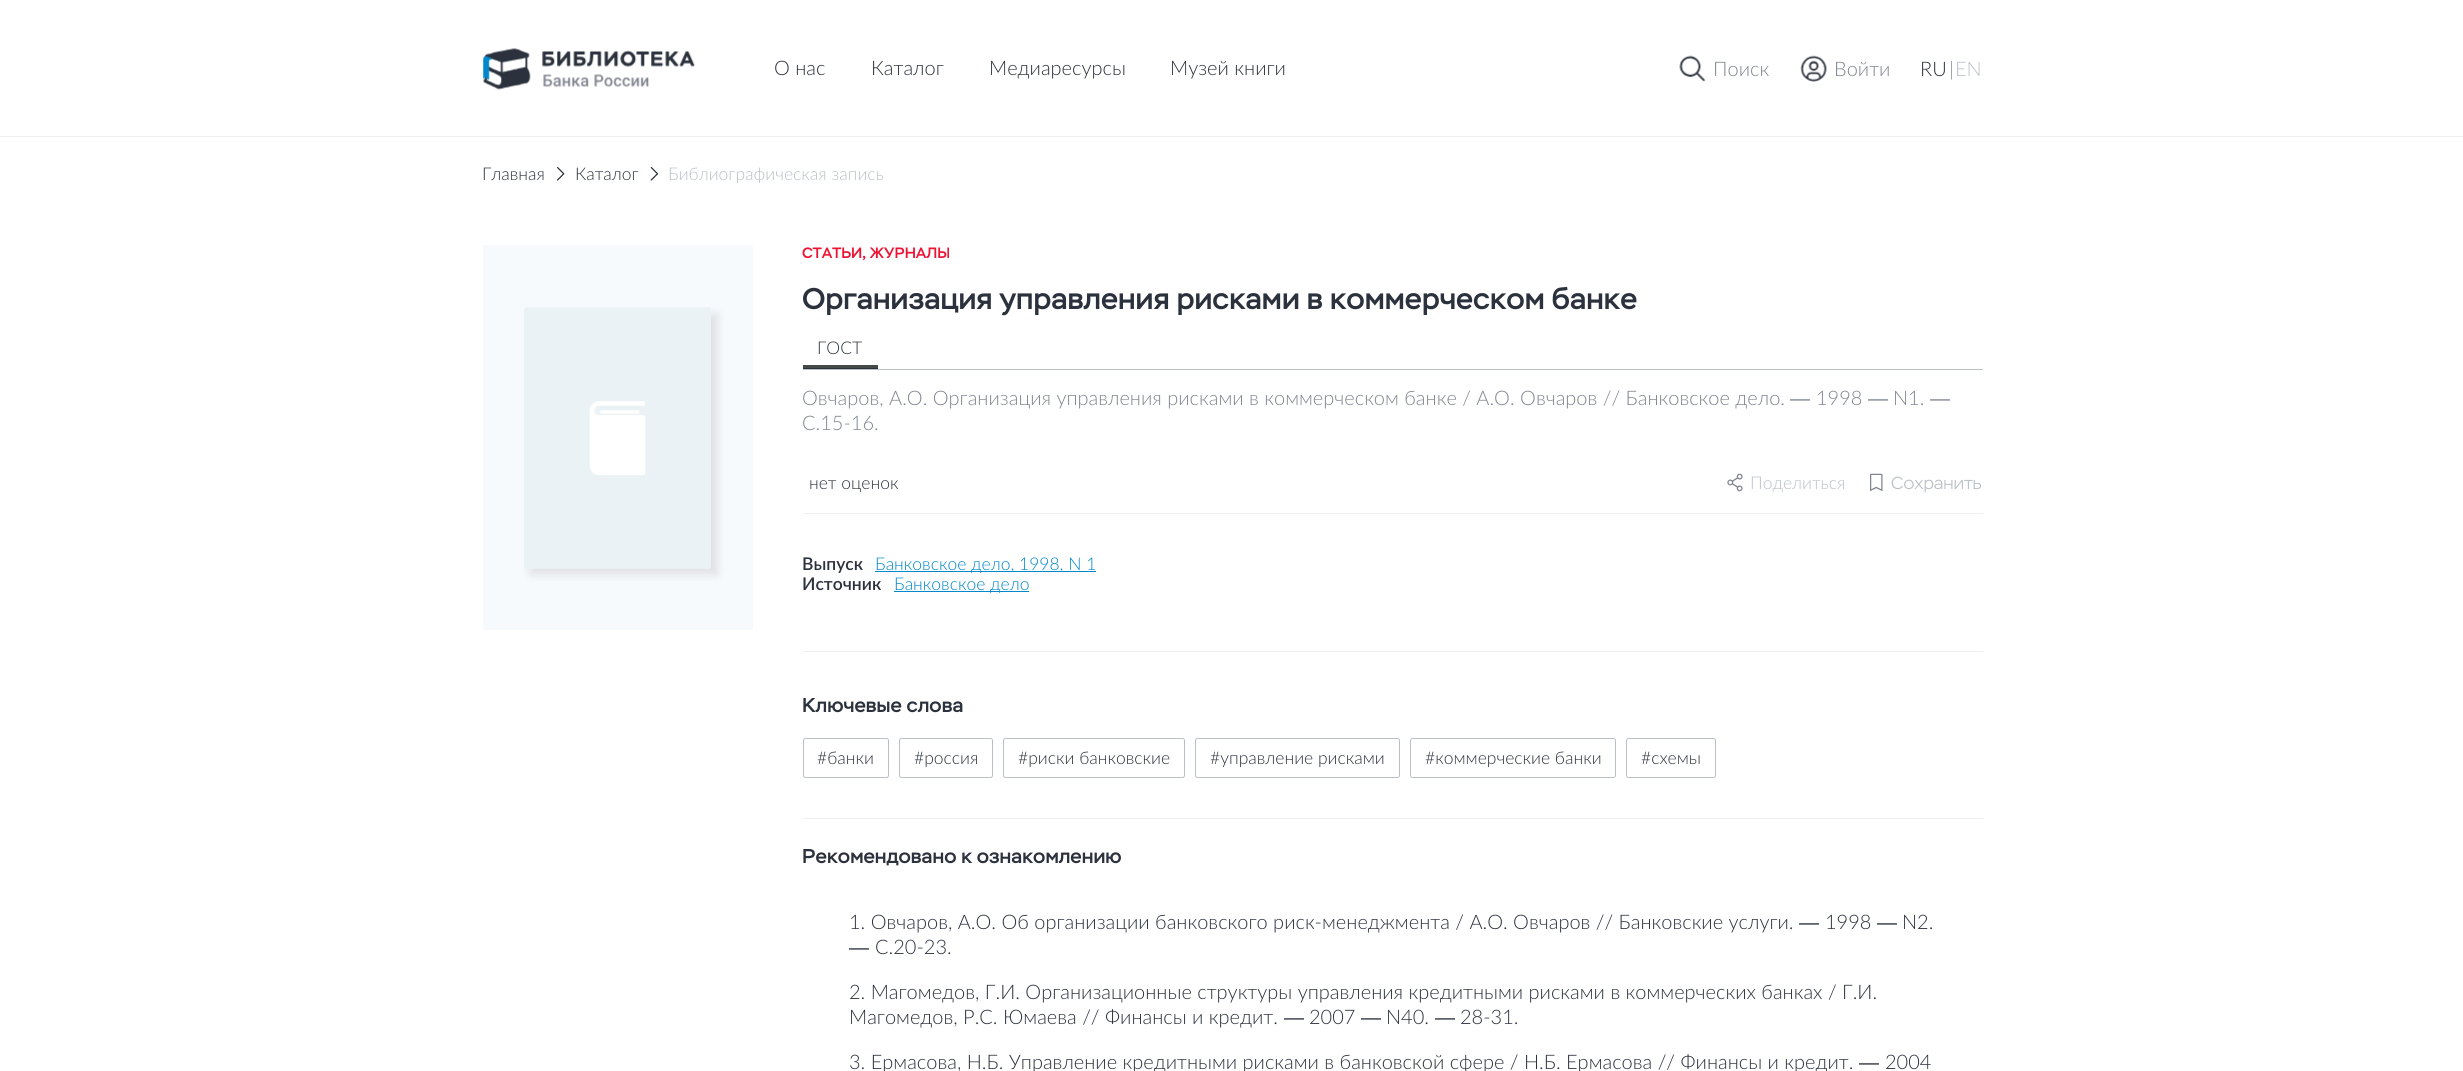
import math
import cairo


def round_path(ctx, x, y, w, h, r):
	ctx.new_sub_path()
	for i, (u, v) in enumerate([(x + w - r, y + h - r), (x + r, y + h - r), (x + r, y + r), (x + w - r, y + r)]):
		ctx.arc(u, v, r, i * math.pi / 2, (i + 1) * math.pi / 2)
	ctx.close_path()

def blur_box(ctx, x, y, w, h, r, blur, alpha):
	ctx.push_group_with_content(cairo.CONTENT_ALPHA)
	ctx.set_operator(cairo.OPERATOR_SOURCE)
	for i in range(15, -16, -2):
		e = blur * i / 6
		if min(w, h) + 2 * e > 0:
			ctx.set_source_rgba(0, 0, 0, alpha * math.erfc((i - 1) / 8.5) / 2)
			round_path(ctx, x - e, y - e, w + 2 * e, h + 2 * e, max(0, min(r + e + blur * .6, min(w, h) / 2 + e)))
			ctx.fill()
	ctx.mask(ctx.pop_group())

def paste(ctx, path, x, y, w, h):
	ctx.save()
	ctx.set_source_surface(cairo.ImageSurface.create_from_png(path), x, y)
	ctx.rectangle(x, y, w, h)
	ctx.fill()
	ctx.restore()

def draw(ctx):
	ctx.set_source_rgb(1, 1, 1)
	ctx.paint()
	ctx.set_source_rgb(0.933, 0.937, 0.945)
	ctx.rectangle(0, 136, 2463, 1)
	ctx.fill()
	paste(ctx, 'media/1.png', 482, 48, 213, 42)
	ctx.select_font_face('Lato Light')
	ctx.set_font_size(20)
	ctx.set_source_rgb(0.173, 0.196, 0.239)
	for x, y, s in [
		(774, 75, 'О нас'),
		(871, 75, 'Каталог'),
		(989, 75, 'Медиаресурсы'),
		(1170, 75, 'Музей книги'),
	]:
		ctx.move_to(x, y)
		ctx.show_text(s)
	paste(ctx, 'media/2.png', 1679, 55, 27, 27)
	ctx.set_source_rgb(0.502, 0.522, 0.561)
	ctx.move_to(1713, 76)
	ctx.show_text('Поиск')
	paste(ctx, 'media/3.png', 1800, 55, 27, 27)
	ctx.move_to(1834, 76)
	ctx.show_text('Войти')
	ctx.set_source_rgb(0.173, 0.196, 0.239)
	ctx.move_to(1920, 76)
	ctx.show_text('RU')
	ctx.set_source_rgb(0.502, 0.522, 0.561)
	ctx.move_to(1949, 76)
	ctx.show_text('|')
	ctx.set_source_rgb(0.725, 0.757, 0.78)
	ctx.move_to(1955, 76)
	ctx.show_text('EN')
	ctx.set_font_size(17.5)
	ctx.set_source_rgb(0.173, 0.196, 0.239)
	ctx.move_to(482, 180)
	ctx.show_text('Главная')
	paste(ctx, 'media/4.png', 557, 167, 8, 14)
	ctx.move_to(575, 180)
	ctx.show_text('Каталог')
	paste(ctx, 'media/5.png', 650, 167, 9, 14)
	ctx.set_source_rgb(0.725, 0.757, 0.78)
	ctx.move_to(668, 180)
	ctx.show_text('Библиографическая запись')
	ctx.set_source_rgb(0.965, 0.98, 0.988)
	round_path(ctx, 483, 245, 270, 385, 2.5)
	ctx.fill()
	ctx.set_source_rgb(0.047, 0.051, 0.149)
	blur_box(ctx, 530, 314, 188, 261, 0, 4, 0.1)
	paste(ctx, 'media/6.png', 524, 307, 187, 262)
	ctx.select_font_face('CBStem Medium')
	ctx.set_font_size(15)
	ctx.set_source_rgb(0.933, 0.075, 0.2)
	ctx.move_to(802, 258)
	ctx.show_text('СТАТЬИ, ЖУРНАЛЫ')
	ctx.set_font_size(30)
	ctx.set_source_rgb(0.173, 0.196, 0.239)
	ctx.move_to(802, 309)
	ctx.show_text('Организация управления рисками в коммерческом банке')
	ctx.set_source_rgb(0.933, 0.937, 0.945)
	ctx.rectangle(803, 513, 1180, 1)
	ctx.fill()
	ctx.set_source_rgb(0.725, 0.757, 0.78)
	ctx.rectangle(803, 369, 1180, 1)
	ctx.fill()
	ctx.set_source_rgb(0.173, 0.196, 0.239)
	ctx.rectangle(803, 368, 75, 1)
	ctx.fill()
	ctx.select_font_face('Lato Light')
	ctx.set_font_size(17.5)
	ctx.move_to(817, 354)
	ctx.show_text('ГОСТ')
	ctx.set_source_rgb(0.267, 0.29, 0.282)
	ctx.rectangle(803, 365, 75, 3)
	ctx.fill()
	ctx.set_font_size(20)
	ctx.set_source_rgb(0.502, 0.522, 0.561)
	ctx.move_to(802, 405)
	ctx.show_text('Овчаров, А.О. Организация управления рисками в коммерческом банке / А.О. Овчаров // Банковское дело.')
	ctx.select_font_face('Liberation Sans')
	ctx.move_to(1790, 405)
	ctx.show_text('—')
	ctx.select_font_face('Lato Light')
	ctx.move_to(1816, 405)
	ctx.show_text('1998')
	ctx.select_font_face('Liberation Sans')
	ctx.move_to(1868, 405)
	ctx.show_text('—')
	ctx.select_font_face('Lato Light')
	ctx.move_to(1893, 405)
	ctx.show_text('N1.')
	ctx.select_font_face('Liberation Sans')
	ctx.move_to(1930, 405)
	ctx.show_text('—')
	ctx.select_font_face('Lato Light')
	ctx.move_to(802, 430)
	ctx.show_text('С.15-16.')
	ctx.set_font_size(17.5)
	ctx.set_source_rgb(0.173, 0.196, 0.239)
	ctx.move_to(809, 489)
	ctx.show_text('нет оценок')
	paste(ctx, 'media/7.png', 1727, 473, 16, 19)
	ctx.set_source_rgb(0.725, 0.757, 0.78)
	ctx.move_to(1750, 489)
	ctx.show_text('Поделиться')
	paste(ctx, 'media/8.png', 1870, 473, 13, 19)
	ctx.select_font_face('CBStem Light')
	ctx.move_to(1891, 489)
	ctx.show_text('Сохранить')
	ctx.set_source_rgb(0.933, 0.937, 0.945)
	ctx.rectangle(803, 651, 1180, 1)
	ctx.fill()
	ctx.select_font_face('Lato SemiBold')
	ctx.set_source_rgb(0.173, 0.196, 0.239)
	ctx.move_to(802, 570)
	ctx.show_text('Выпуск')
	ctx.set_source_rgb(0, 0.533, 0.8)
	ctx.rectangle(875, 571, 221, 1)
	ctx.fill()
	ctx.select_font_face('Lato Light')
	ctx.move_to(875, 570)
	ctx.show_text('Банковское дело, 1998, N 1')
	ctx.select_font_face('Lato SemiBold')
	ctx.set_source_rgb(0.173, 0.196, 0.239)
	ctx.move_to(802, 590)
	ctx.show_text('Источник')
	ctx.set_source_rgb(0, 0.533, 0.8)
	ctx.rectangle(894, 591, 135, 1)
	ctx.fill()
	ctx.select_font_face('Lato Light')
	ctx.move_to(894, 590)
	ctx.show_text('Банковское дело')
	ctx.select_font_face('CBStem Medium')
	ctx.set_font_size(20)
	ctx.set_source_rgb(0.173, 0.196, 0.239)
	ctx.move_to(802, 712)
	ctx.show_text('Ключевые слова')
	round_path(ctx, 803.5, 738.5, 85, 39, 2)
	ctx.set_source_rgb(0.725, 0.757, 0.78)
	ctx.set_line_width(1)
	ctx.stroke()
	ctx.select_font_face('Lato Light')
	ctx.set_font_size(17.5)
	ctx.set_source_rgb(0.173, 0.196, 0.239)
	ctx.move_to(817, 764)
	ctx.show_text('#банки')
	round_path(ctx, 899.5, 738.5, 93, 39, 2)
	ctx.set_source_rgb(0.725, 0.757, 0.78)
	ctx.stroke()
	ctx.set_source_rgb(0.173, 0.196, 0.239)
	ctx.move_to(914, 764)
	ctx.show_text('#россия')
	round_path(ctx, 1003.5, 738.5, 181, 39, 2)
	ctx.set_source_rgb(0.725, 0.757, 0.78)
	ctx.stroke()
	ctx.set_source_rgb(0.173, 0.196, 0.239)
	ctx.move_to(1018, 764)
	ctx.show_text('#риски банковские')
	round_path(ctx, 1195.5, 738.5, 204, 39, 2)
	ctx.set_source_rgb(0.725, 0.757, 0.78)
	ctx.stroke()
	ctx.set_source_rgb(0.173, 0.196, 0.239)
	ctx.move_to(1210, 764)
	ctx.show_text('#управление рисками')
	round_path(ctx, 1410.5, 738.5, 205, 39, 2)
	ctx.set_source_rgb(0.725, 0.757, 0.78)
	ctx.stroke()
	ctx.set_source_rgb(0.173, 0.196, 0.239)
	ctx.move_to(1425, 764)
	ctx.show_text('#коммерческие банки')
	round_path(ctx, 1626.5, 738.5, 89, 39, 2)
	ctx.set_source_rgb(0.725, 0.757, 0.78)
	ctx.stroke()
	ctx.set_source_rgb(0.173, 0.196, 0.239)
	ctx.move_to(1641, 764)
	ctx.show_text('#схемы')
	ctx.set_source_rgb(0.933, 0.937, 0.945)
	ctx.rectangle(803, 818, 1180, 1)
	ctx.fill()
	ctx.select_font_face('CBStem Medium')
	ctx.set_font_size(20)
	ctx.set_source_rgb(0.173, 0.196, 0.239)
	ctx.move_to(802, 863)
	ctx.show_text('Рекомендовано к ознакомлению')
	ctx.select_font_face('Lato Light')
	ctx.move_to(849, 929)
	ctx.show_text('1. Овчаров, А.О. Об организации банковского риск-менеджмента / А.О. Овчаров // Банковские услуги.')
	ctx.select_font_face('Liberation Sans')
	ctx.move_to(1799, 929)
	ctx.show_text('—')
	ctx.select_font_face('Lato Light')
	ctx.move_to(1825, 929)
	ctx.show_text('1998')
	ctx.select_font_face('Liberation Sans')
	ctx.move_to(1877, 929)
	ctx.show_text('—')
	ctx.select_font_face('Lato Light')
	ctx.move_to(1902, 929)
	ctx.show_text('N2.')
	ctx.select_font_face('Liberation Sans')
	ctx.move_to(849, 954)
	ctx.show_text('—')
	ctx.select_font_face('Lato Light')
	for x, y, s in [
		(875, 954, 'С.20-23.'),
		(849, 999, '2. Магомедов, Г.И. Организационные структуры управления кредитными рисками в коммерческих банках / Г.И.'),
		(849, 1024, 'Магомедов, Р.С. Юмаева // Финансы и кредит.'),
	]:
		ctx.move_to(x, y)
		ctx.show_text(s)
	ctx.select_font_face('Liberation Sans')
	ctx.move_to(1284, 1024)
	ctx.show_text('—')
	ctx.select_font_face('Lato Light')
	ctx.move_to(1309, 1024)
	ctx.show_text('2007')
	ctx.select_font_face('Liberation Sans')
	ctx.move_to(1361, 1024)
	ctx.show_text('—')
	ctx.select_font_face('Lato Light')
	ctx.move_to(1386, 1024)
	ctx.show_text('N40.')
	ctx.select_font_face('Liberation Sans')
	ctx.move_to(1435, 1024)
	ctx.show_text('—')
	ctx.select_font_face('Lato Light')
	ctx.move_to(1460, 1024)
	ctx.show_text('28-31.')
	ctx.move_to(849, 1069)
	ctx.show_text('3. Ермасова, Н.Б. Управление кредитными рисками в банковской сфере / Н.Б. Ермасова // Финансы и кредит.')
	ctx.select_font_face('Liberation Sans')
	ctx.move_to(1859, 1069)
	ctx.show_text('—')
	ctx.select_font_face('Lato Light')
	ctx.move_to(1885, 1069)
	ctx.show_text('2004')


surface = cairo.ImageSurface(cairo.FORMAT_RGB24, 2463, 1071)
ctx = cairo.Context(surface)
options = cairo.FontOptions()
options.set_hint_metrics(cairo.HINT_METRICS_OFF)
options.set_hint_style(cairo.HINT_STYLE_NONE)
ctx.set_font_options(options)
ctx.set_miter_limit(4)
draw(ctx)
surface.write_to_png('image.png')
